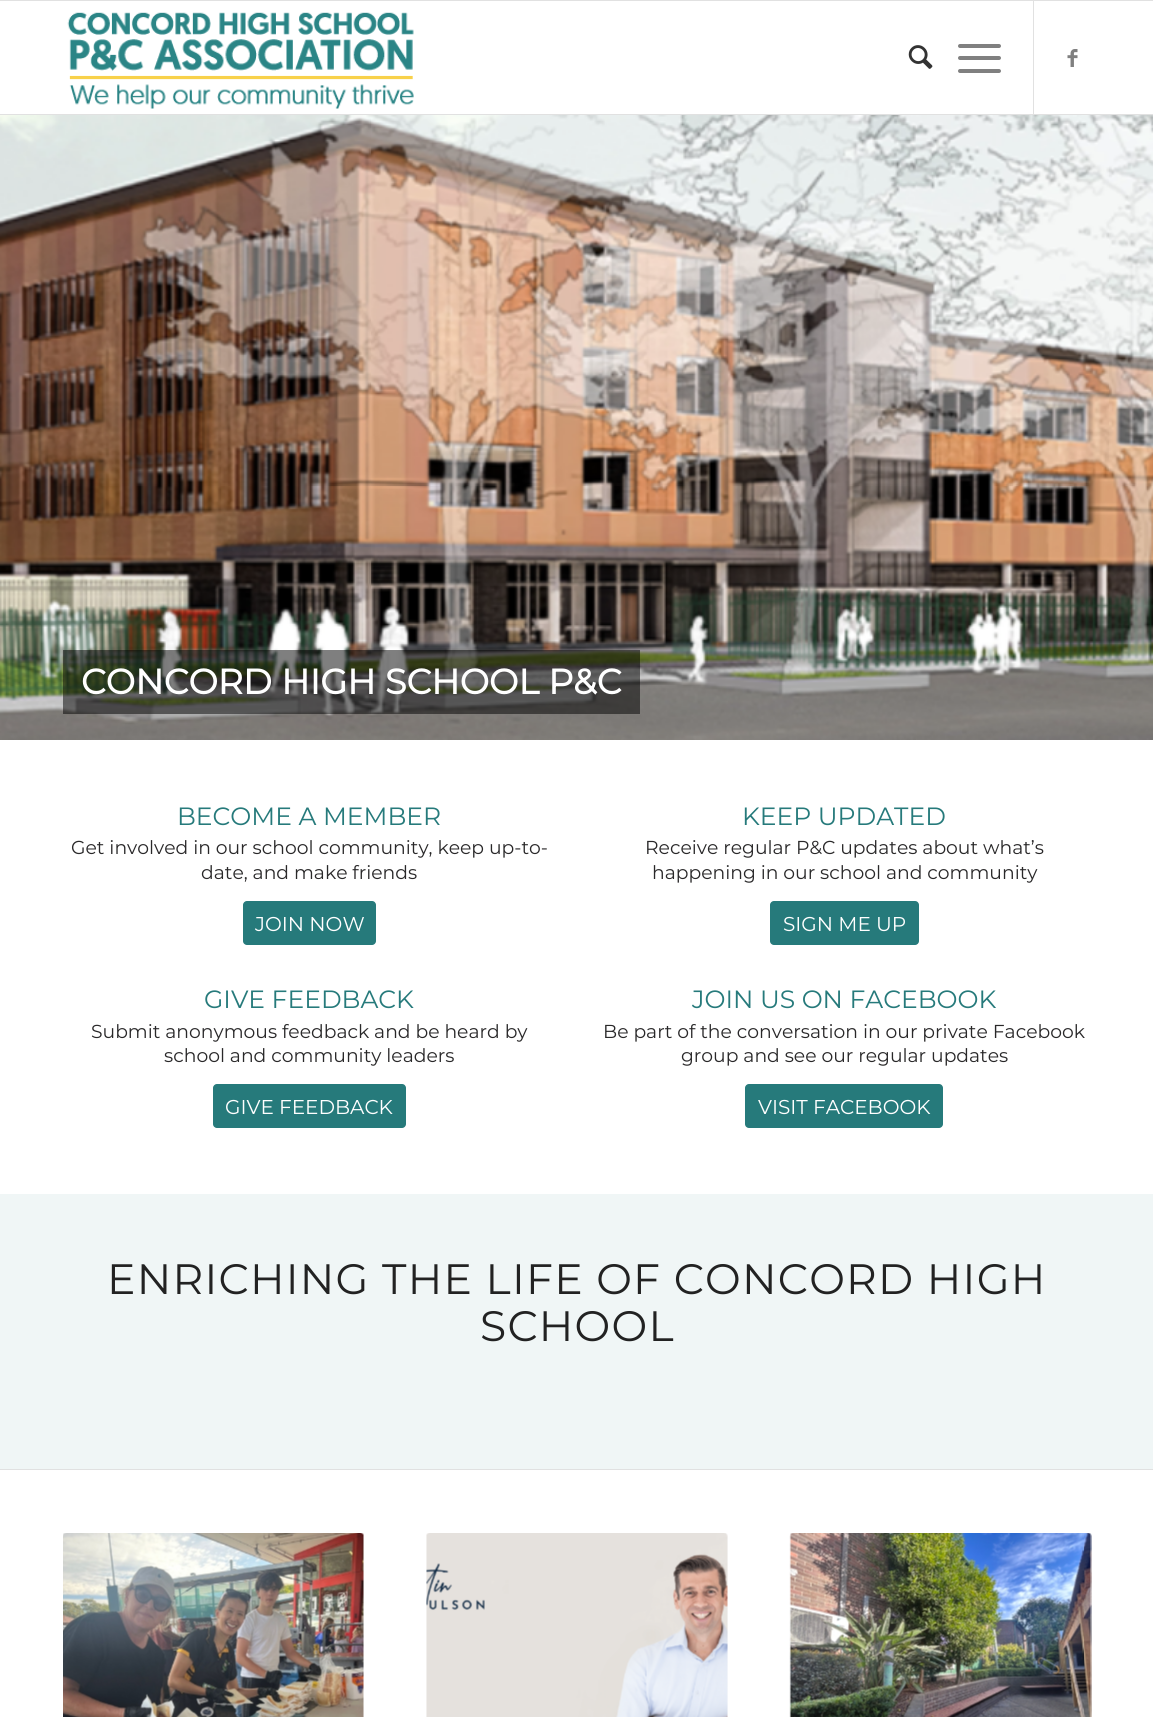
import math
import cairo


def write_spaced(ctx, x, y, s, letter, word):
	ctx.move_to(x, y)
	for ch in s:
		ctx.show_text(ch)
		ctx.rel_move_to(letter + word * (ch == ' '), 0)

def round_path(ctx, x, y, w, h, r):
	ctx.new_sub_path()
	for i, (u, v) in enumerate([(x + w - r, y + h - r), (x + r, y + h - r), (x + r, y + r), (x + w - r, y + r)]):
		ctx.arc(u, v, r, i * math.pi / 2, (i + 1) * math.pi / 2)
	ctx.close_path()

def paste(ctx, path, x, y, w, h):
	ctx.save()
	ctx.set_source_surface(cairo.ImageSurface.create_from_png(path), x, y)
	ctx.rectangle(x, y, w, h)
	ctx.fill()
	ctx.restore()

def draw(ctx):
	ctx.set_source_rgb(1, 1, 1)
	ctx.paint()
	ctx.set_source_rgb(0.882, 0.882, 0.882)
	ctx.rectangle(0, 0, 1153, 1)
	ctx.fill()
	ctx.rectangle(0, 114, 1153, 1)
	ctx.fill()
	paste(ctx, 'media/1.png', 67, 12, 347, 97)
	ctx.rectangle(1033, 1, 1, 113)
	ctx.fill()
	paste(ctx, 'media/2.png', 908, 45, 25, 24)
	ctx.set_source_rgb(0.502, 0.502, 0.502)
	round_path(ctx, 958, 56, 43, 4, 2)
	ctx.fill()
	round_path(ctx, 958, 44, 43, 4, 2)
	ctx.fill()
	round_path(ctx, 958, 69, 43, 4, 2)
	ctx.fill()
	paste(ctx, 'media/3.png', 1067, 49, 11, 18)
	paste(ctx, 'media/4.png', 0, 115, 1153, 625)
	ctx.set_source_rgba(0, 0, 0, 0.5)
	ctx.rectangle(63, 650, 577, 64)
	ctx.fill()
	ctx.select_font_face('Montserrat', cairo.FONT_SLANT_NORMAL, cairo.FONT_WEIGHT_BOLD)
	ctx.set_font_size(35)
	ctx.set_source_rgb(1, 1, 1)
	ctx.move_to(81, 694)
	ctx.show_text('CONCORD HIGH SCHOOL P&C')
	ctx.select_font_face('Montserrat Thin')
	ctx.set_font_size(25)
	ctx.set_source_rgb(0.149, 0.478, 0.482)
	ctx.move_to(177, 825)
	ctx.show_text('BECOME A MEMBER')
	ctx.set_font_size(18.75)
	ctx.set_source_rgb(0.161, 0.157, 0.161)
	ctx.move_to(71, 854)
	ctx.show_text('Get involved in our school community, keep up-to-')
	ctx.move_to(201, 879)
	ctx.show_text('date, and make friends')
	ctx.set_source_rgb(0.149, 0.478, 0.482)
	round_path(ctx, 243, 901, 133, 44, 4)
	ctx.fill()
	ctx.set_font_size(20)
	ctx.set_source_rgb(1, 1, 1)
	ctx.move_to(255, 931)
	ctx.show_text('JOIN NOW')
	ctx.set_font_size(25)
	ctx.set_source_rgb(0.149, 0.478, 0.482)
	ctx.move_to(742, 825)
	ctx.show_text('KEEP UPDATED')
	ctx.set_font_size(18.75)
	ctx.set_source_rgb(0.161, 0.157, 0.161)
	ctx.move_to(645, 854)
	ctx.show_text('Receive regular P&C updates about what’s')
	ctx.move_to(652, 879)
	ctx.show_text('happening in our school and community')
	ctx.set_source_rgb(0.149, 0.478, 0.482)
	round_path(ctx, 770, 901, 149, 44, 4)
	ctx.fill()
	ctx.set_font_size(20)
	ctx.set_source_rgb(1, 1, 1)
	ctx.move_to(783, 931)
	ctx.show_text('SIGN ME UP')
	ctx.set_font_size(25)
	ctx.set_source_rgb(0.149, 0.478, 0.482)
	ctx.move_to(204, 1008)
	ctx.show_text('GIVE FEEDBACK')
	ctx.set_font_size(18.75)
	ctx.set_source_rgb(0.161, 0.157, 0.161)
	ctx.move_to(91, 1038)
	ctx.show_text('Submit anonymous feedback and be heard by')
	ctx.move_to(164, 1062)
	ctx.show_text('school and community leaders')
	ctx.set_source_rgb(0.149, 0.478, 0.482)
	round_path(ctx, 213, 1084, 193, 44, 4)
	ctx.fill()
	ctx.set_font_size(20)
	ctx.set_source_rgb(1, 1, 1)
	ctx.move_to(225, 1114)
	ctx.show_text('GIVE FEEDBACK')
	ctx.set_font_size(25)
	ctx.set_source_rgb(0.149, 0.478, 0.482)
	ctx.move_to(692, 1008)
	ctx.show_text('JOIN US ON FACEBOOK')
	ctx.set_font_size(18.75)
	ctx.set_source_rgb(0.161, 0.157, 0.161)
	ctx.move_to(603, 1038)
	ctx.show_text('Be part of the conversation in our private Facebook')
	ctx.move_to(681, 1062)
	ctx.show_text('group and see our regular updates')
	ctx.set_source_rgb(0.149, 0.478, 0.482)
	round_path(ctx, 745, 1084, 198, 44, 4)
	ctx.fill()
	ctx.set_font_size(20)
	ctx.set_source_rgb(1, 1, 1)
	ctx.move_to(758, 1114)
	ctx.show_text('VISIT FACEBOOK')
	ctx.set_source_rgb(0.941, 0.961, 0.961)
	ctx.rectangle(0, 1194, 1153, 275)
	ctx.fill()
	ctx.set_font_size(42.5)
	ctx.set_source_rgb(0.133, 0.133, 0.133)
	write_spaced(ctx, 107, 1294, 'ENRICHING THE LIFE OF CONCORD HIGH', 1.25, 0)
	write_spaced(ctx, 480, 1341, 'SCHOOL', 1.25, 0)
	ctx.set_source_rgb(0.882, 0.882, 0.882)
	ctx.rectangle(0, 1469, 1153, 1)
	ctx.fill()
	ctx.set_source_rgb(0.988, 0.988, 0.988)
	round_path(ctx, 63, 1533, 301, 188, 4)
	ctx.fill()
	paste(ctx, 'media/5.png', 63, 1533, 301, 184)
	round_path(ctx, 426, 1533, 302, 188, 4)
	ctx.fill()
	paste(ctx, 'media/6.png', 426, 1533, 302, 184)
	round_path(ctx, 790, 1533, 301, 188, 4)
	ctx.fill()
	paste(ctx, 'media/7.png', 789, 1533, 303, 184)


surface = cairo.ImageSurface(cairo.FORMAT_RGB24, 1153, 1717)
ctx = cairo.Context(surface)
options = cairo.FontOptions()
options.set_hint_metrics(cairo.HINT_METRICS_OFF)
options.set_hint_style(cairo.HINT_STYLE_NONE)
ctx.set_font_options(options)
ctx.set_miter_limit(4)
draw(ctx)
surface.write_to_png('image.png')
